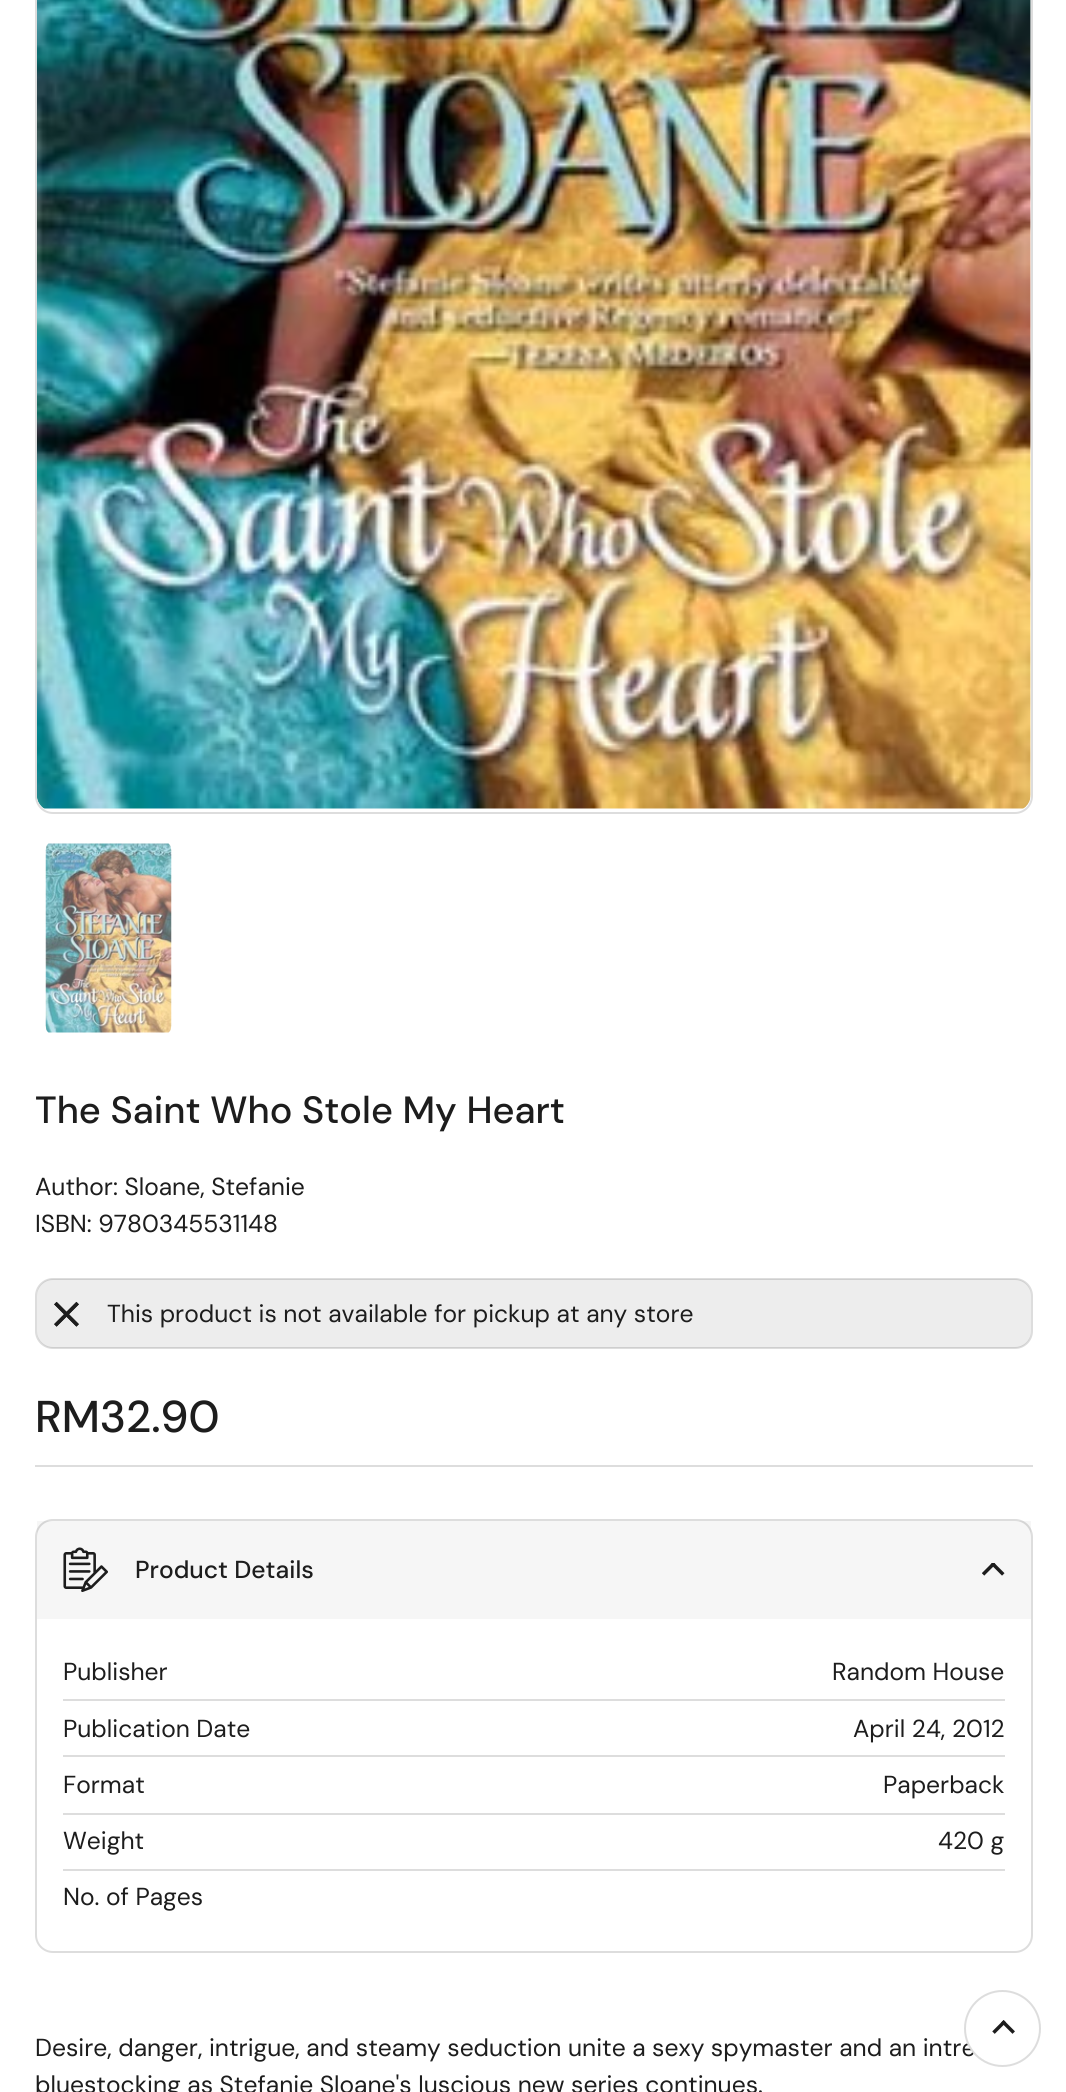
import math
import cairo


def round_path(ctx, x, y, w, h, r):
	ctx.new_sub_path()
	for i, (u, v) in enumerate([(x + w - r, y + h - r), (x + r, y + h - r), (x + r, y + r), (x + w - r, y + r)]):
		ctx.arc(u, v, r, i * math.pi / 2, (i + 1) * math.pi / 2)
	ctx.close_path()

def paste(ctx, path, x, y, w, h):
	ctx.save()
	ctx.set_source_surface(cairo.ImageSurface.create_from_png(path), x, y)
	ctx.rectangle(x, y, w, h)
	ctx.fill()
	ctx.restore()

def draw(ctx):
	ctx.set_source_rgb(1, 1, 1)
	ctx.paint()
	round_path(ctx, 36, -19, 996, 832, 17)
	ctx.set_source_rgb(0.867, 0.867, 0.867)
	ctx.stroke()
	paste(ctx, 'media/1.png', 37, 0, 994, 809)
	paste(ctx, 'media/2.png', 45, 843, 127, 190)
	ctx.select_font_face('DM Sans Medium')
	ctx.set_font_size(37.9)
	ctx.set_source_rgb(0.114, 0.114, 0.114)
	ctx.move_to(35, 1123)
	ctx.show_text('The Saint Who Stole My Heart')
	ctx.select_font_face('DM Sans')
	ctx.set_font_size(24.6)
	ctx.move_to(35, 1195)
	ctx.show_text('Author: Sloane, Stefanie')
	ctx.move_to(35, 1232)
	ctx.show_text('ISBN: 9780345531148')
	round_path(ctx, 36, 1279, 996, 69, 17)
	ctx.set_source_rgb(0.867, 0.867, 0.867)
	ctx.stroke()
	ctx.set_source_rgba(0.114, 0.114, 0.114, 0.08)
	round_path(ctx, 37, 1279, 994, 69, 16)
	ctx.fill()
	paste(ctx, 'media/3.png', 54, 1301, 25, 26)
	ctx.set_source_rgb(0.114, 0.114, 0.114)
	ctx.move_to(107, 1322)
	ctx.show_text('This product is not available for pickup at any store')
	ctx.select_font_face('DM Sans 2 Medium')
	ctx.set_font_size(44.5)
	ctx.move_to(35, 1432)
	ctx.show_text('RM32.90')
	ctx.set_source_rgb(0.867, 0.867, 0.867)
	ctx.rectangle(35, 1465, 998, 2)
	ctx.fill()
	round_path(ctx, 36, 1520, 996, 432, 17)
	ctx.stroke()
	ctx.set_source_rgba(0.114, 0.114, 0.114, 0.04)
	ctx.rectangle(37, 1521, 994, 98)
	ctx.fill()
	paste(ctx, 'media/4.png', 63, 1547, 45, 45)
	ctx.select_font_face('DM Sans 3 Medium')
	ctx.set_font_size(24.6)
	ctx.set_source_rgb(0.114, 0.114, 0.114)
	ctx.move_to(135, 1578)
	ctx.show_text('Product Details')
	paste(ctx, 'media/5.png', 982, 1563, 23, 13)
	ctx.set_source_rgb(0.867, 0.867, 0.867)
	ctx.rectangle(63, 1699, 942, 2)
	ctx.fill()
	ctx.select_font_face('DM Sans')
	ctx.set_source_rgb(0.114, 0.114, 0.114)
	ctx.move_to(63, 1680)
	ctx.show_text('Publisher')
	ctx.move_to(832, 1680)
	ctx.show_text('Random House')
	ctx.set_source_rgb(0.867, 0.867, 0.867)
	ctx.rectangle(63, 1755, 942, 2)
	ctx.fill()
	ctx.set_source_rgb(0.114, 0.114, 0.114)
	ctx.move_to(63, 1737)
	ctx.show_text('Publication Date')
	ctx.move_to(853, 1737)
	ctx.show_text('April 24, 2012')
	ctx.set_source_rgb(0.867, 0.867, 0.867)
	ctx.rectangle(63, 1813, 942, 2)
	ctx.fill()
	ctx.set_source_rgb(0.114, 0.114, 0.114)
	ctx.move_to(63, 1793)
	ctx.show_text('Format')
	ctx.move_to(883, 1793)
	ctx.show_text('Paperback')
	ctx.set_source_rgb(0.867, 0.867, 0.867)
	ctx.rectangle(63, 1869, 942, 2)
	ctx.fill()
	ctx.set_source_rgb(0.114, 0.114, 0.114)
	for x, y, s in [
		(63, 1849, 'Weight'),
		(938, 1849, '420 g'),
		(63, 1905, 'No. of Pages'),
		(35, 2056, 'Desire, danger, intrigue, and steamy seduction unite a sexy spymaster and an intre'),
		(35, 2093, 'bluestocking as Stefanie Sloane\'s luscious new series continues.'),
	]:
		ctx.move_to(x, y)
		ctx.show_text(s)
	ctx.set_source_rgb(1, 1, 1)
	ctx.new_path()
	ctx.arc(1002.5, 2028.5, 38.5, 0, 2 * math.pi)
	ctx.fill()
	ctx.arc(1002.5, 2028.5, 37.5, 0, 2 * math.pi)
	ctx.set_source_rgba(0.114, 0.114, 0.114, 0.15)
	ctx.stroke()
	paste(ctx, 'media/6.png', 992, 2020, 23, 14)


surface = cairo.ImageSurface(cairo.FORMAT_RGB24, 1066, 2092)
ctx = cairo.Context(surface)
options = cairo.FontOptions()
options.set_hint_metrics(cairo.HINT_METRICS_OFF)
options.set_hint_style(cairo.HINT_STYLE_NONE)
ctx.set_font_options(options)
ctx.set_miter_limit(4)
draw(ctx)
surface.write_to_png('image.png')
